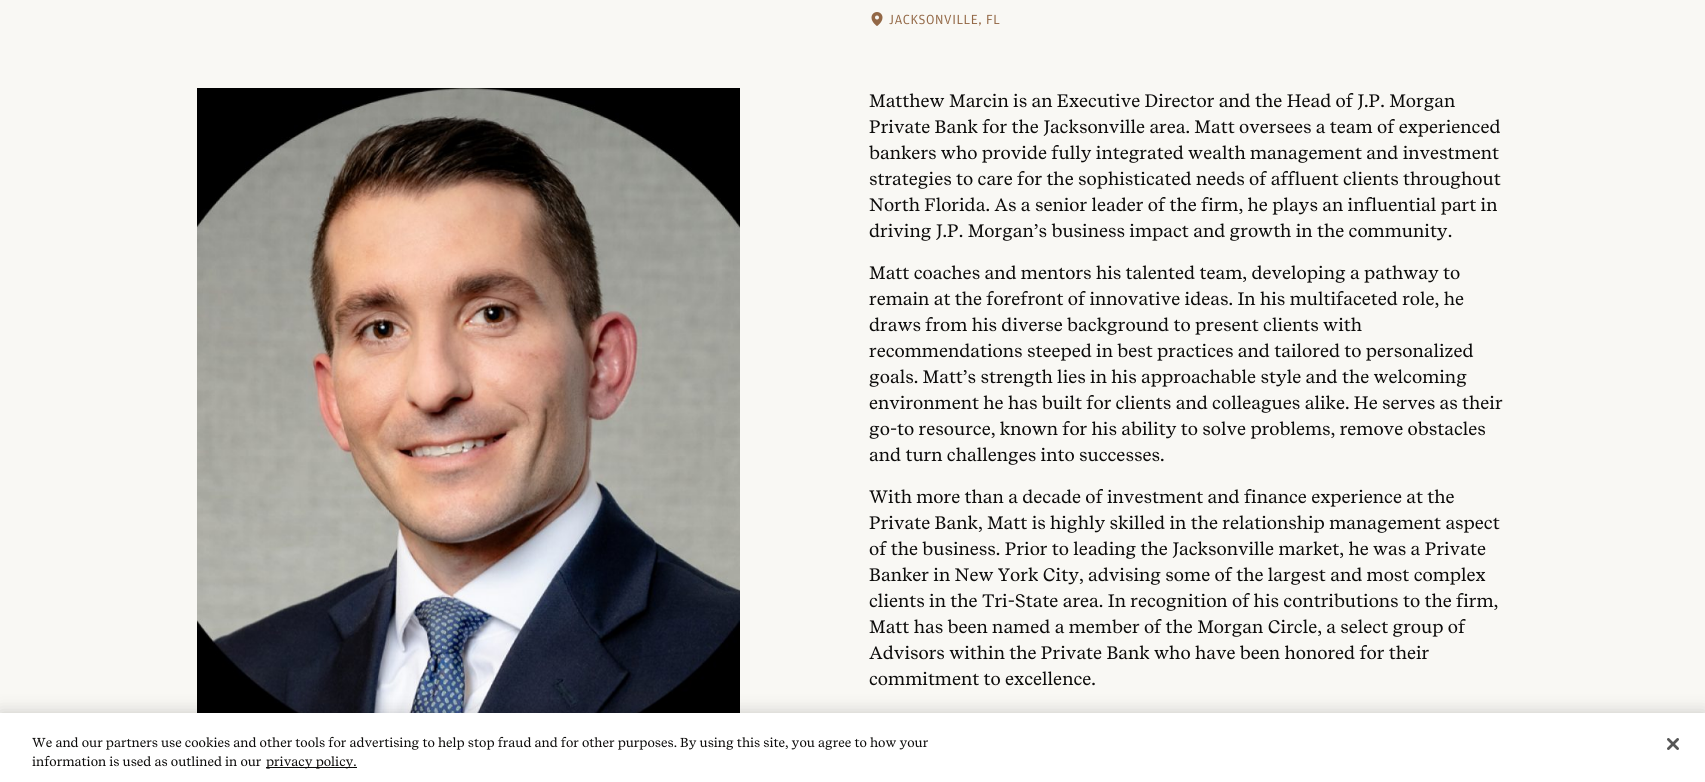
import math
import cairo


def write_spaced(ctx, x, y, s, letter, word):
	ctx.move_to(x, y)
	for ch in s:
		ctx.show_text(ch)
		ctx.rel_move_to(letter + word * (ch == ' '), 0)

def round_path(ctx, x, y, w, h, r):
	ctx.new_sub_path()
	for i, (u, v) in enumerate([(x + w - r, y + h - r), (x + r, y + h - r), (x + r, y + r), (x + w - r, y + r)]):
		ctx.arc(u, v, r, i * math.pi / 2, (i + 1) * math.pi / 2)
	ctx.close_path()

def blur_box(ctx, x, y, w, h, r, blur, alpha):
	ctx.push_group_with_content(cairo.CONTENT_ALPHA)
	ctx.set_operator(cairo.OPERATOR_SOURCE)
	for i in range(15, -16, -2):
		e = blur * i / 6
		if min(w, h) + 2 * e > 0:
			ctx.set_source_rgba(0, 0, 0, alpha * math.erfc((i - 1) / 8.5) / 2)
			round_path(ctx, x - e, y - e, w + 2 * e, h + 2 * e, max(0, min(r + e + blur * .6, min(w, h) / 2 + e)))
			ctx.fill()
	ctx.mask(ctx.pop_group())

def paste(ctx, path, x, y, w, h):
	ctx.save()
	ctx.set_source_surface(cairo.ImageSurface.create_from_png(path), x, y)
	ctx.rectangle(x, y, w, h)
	ctx.fill()
	ctx.restore()

def draw(ctx):
	ctx.set_source_rgb(0.973, 0.969, 0.957)
	ctx.paint()
	paste(ctx, 'media/1.png', 197, 88, 543, 625)
	paste(ctx, 'media/2.png', 871, 12, 12, 14)
	ctx.select_font_face('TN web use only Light')
	ctx.set_font_size(14)
	ctx.set_source_rgb(0.576, 0.408, 0.275)
	write_spaced(ctx, 889, 24, 'JACKSONVILLE, FL', 0.5, 0)
	ctx.select_font_face('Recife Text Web')
	ctx.set_font_size(18)
	ctx.set_source_rgb(0.051, 0.047, 0.043)
	for x, y, s in [
		(869, 107, 'Matthew Marcin is an Executive Director and the Head of J.P. Morgan'),
		(869, 133, 'Private Bank for the Jacksonville area. Matt oversees a team of experienced'),
		(869, 159, 'bankers who provide fully integrated wealth management and investment'),
		(869, 185, 'strategies to care for the sophisticated needs of affluent clients throughout'),
		(869, 211, 'North Florida. As a senior leader of the firm, he plays an influential part in'),
		(869, 237, 'driving J.P. Morgan’s business impact and growth in the community.'),
		(869, 279, 'Matt coaches and mentors his talented team, developing a pathway to'),
		(869, 305, 'remain at the forefront of innovative ideas. In his multifaceted role, he'),
		(869, 331, 'draws from his diverse background to present clients with'),
		(869, 357, 'recommendations steeped in best practices and tailored to personalized'),
		(869, 383, 'goals. Matt’s strength lies in his approachable style and the welcoming'),
		(869, 409, 'environment he has built for clients and colleagues alike. He serves as their'),
		(869, 435, 'go-to resource, known for his ability to solve problems, remove obstacles'),
		(869, 461, 'and turn challenges into successes.'),
		(869, 503, 'With more than a decade of investment and finance experience at the'),
		(869, 529, 'Private Bank, Matt is highly skilled in the relationship management aspect'),
		(869, 555, 'of the business. Prior to leading the Jacksonville market, he was a Private'),
		(869, 581, 'Banker in New York City, advising some of the largest and most complex'),
		(869, 607, 'clients in the Tri-State area. In recognition of his contributions to the firm,'),
		(869, 633, 'Matt has been named a member of the Morgan Circle, a select group of'),
		(869, 659, 'Advisors within the Private Bank who have been honored for their'),
		(869, 685, 'commitment to excellence.'),
	]:
		ctx.move_to(x, y)
		ctx.show_text(s)
	ctx.set_source_rgb(0, 0, 0)
	blur_box(ctx, 0, 713, 1705, 69, 0, 9, 0.2)
	ctx.set_source_rgb(1, 1, 1)
	ctx.rectangle(0, 713, 1705, 69)
	ctx.fill()
	ctx.set_font_size(13)
	ctx.set_source_rgb(0.051, 0.047, 0.043)
	ctx.move_to(32, 747)
	ctx.show_text('We and our partners use cookies and other tools for advertising to help stop fraud and for other purposes. By using this site, you agree to how your')
	ctx.move_to(32, 766)
	ctx.show_text('information is used as outlined in our')
	ctx.set_source_rgb(0.043, 0.043, 0.043)
	ctx.rectangle(266, 767, 91, 1)
	ctx.fill()
	ctx.set_source_rgb(0.051, 0.047, 0.043)
	ctx.move_to(266, 766)
	ctx.show_text('privacy policy.')
	paste(ctx, 'media/3.png', 1667, 738, 12, 12)


surface = cairo.ImageSurface(cairo.FORMAT_RGB24, 1705, 782)
ctx = cairo.Context(surface)
options = cairo.FontOptions()
options.set_hint_metrics(cairo.HINT_METRICS_OFF)
options.set_hint_style(cairo.HINT_STYLE_NONE)
ctx.set_font_options(options)
ctx.set_miter_limit(4)
draw(ctx)
surface.write_to_png('image.png')
